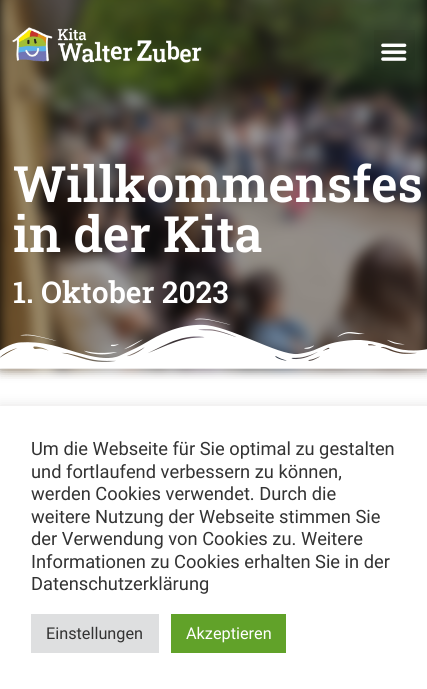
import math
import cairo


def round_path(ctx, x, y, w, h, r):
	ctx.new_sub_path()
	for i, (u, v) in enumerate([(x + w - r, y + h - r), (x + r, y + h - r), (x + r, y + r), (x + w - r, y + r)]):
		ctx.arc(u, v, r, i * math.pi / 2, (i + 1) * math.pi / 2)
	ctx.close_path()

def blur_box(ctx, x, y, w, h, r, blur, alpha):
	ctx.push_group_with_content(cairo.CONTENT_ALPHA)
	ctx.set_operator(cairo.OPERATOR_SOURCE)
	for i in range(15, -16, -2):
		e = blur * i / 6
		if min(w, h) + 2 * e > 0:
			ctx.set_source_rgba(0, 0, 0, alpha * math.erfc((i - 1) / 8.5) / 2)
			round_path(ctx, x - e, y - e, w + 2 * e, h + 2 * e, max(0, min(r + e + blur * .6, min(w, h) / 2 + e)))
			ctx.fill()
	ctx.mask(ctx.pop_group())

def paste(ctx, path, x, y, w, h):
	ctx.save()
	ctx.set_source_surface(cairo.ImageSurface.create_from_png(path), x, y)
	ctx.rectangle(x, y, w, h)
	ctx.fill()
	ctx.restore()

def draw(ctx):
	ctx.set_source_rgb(1, 1, 1)
	ctx.paint()
	ctx.set_source_rgb(0, 0, 0)
	ctx.rectangle(0, 0, 427, 362)
	ctx.fill()
	ctx.set_source_rgb(0, 0, 0)
	blur_box(ctx, 0, -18, 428, 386, 0, 6, 0.58)
	paste(ctx, 'media/3.png', 0, 0, 427, 379)
	paste(ctx, 'media/1.png', 12, 27, 190, 36)
	ctx.set_source_rgba(0, 0, 0, 0.05)
	ctx.rectangle(374, 30, 41, 40)
	ctx.fill()
	paste(ctx, 'media/2.png', 381, 43, 26, 18)
	ctx.select_font_face('Roboto Slab SemiBold')
	ctx.set_font_size(50)
	ctx.set_source_rgb(1, 1, 1)
	ctx.move_to(13, 202)
	ctx.show_text('Willkommensfes')
	ctx.move_to(13, 252)
	ctx.show_text('in der Kita')
	ctx.set_font_size(30)
	ctx.move_to(13, 303)
	ctx.show_text('1. Oktober 2023')
	paste(ctx, 'media/4.png', 0, 318, 427, 51)
	ctx.set_source_rgb(0.675, 0.671, 0.671)
	blur_box(ctx, 0, 405, 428, 284, 0, 6, 0.3)
	ctx.set_source_rgb(1, 1, 1)
	ctx.rectangle(0, 406, 427, 283)
	ctx.fill()
	ctx.select_font_face('Roboto')
	ctx.set_font_size(18.3)
	ctx.set_source_rgb(0.2, 0.2, 0.2)
	for x, y, s in [
		(31, 455, 'Um die Webseite für Sie optimal zu gestalten'),
		(31, 478, 'und fortlaufend verbessern zu können,'),
		(31, 500, 'werden Cookies verwendet. Durch die'),
		(31, 523, 'weitere Nutzung der Webseite stimmen Sie'),
		(31, 545, 'der Verwendung von Cookies zu. Weitere'),
		(31, 568, 'Informationen zu Cookies erhalten Sie in der'),
		(31, 590, 'Datenschutzerklärung'),
	]:
		ctx.move_to(x, y)
		ctx.show_text(s)
	ctx.set_source_rgb(0.871, 0.875, 0.878)
	ctx.rectangle(31, 614, 128, 39)
	ctx.fill()
	ctx.set_font_size(16.25)
	ctx.set_source_rgb(0.2, 0.2, 0.2)
	ctx.move_to(46, 639)
	ctx.show_text('Einstellungen')
	ctx.set_source_rgb(0.38, 0.635, 0.161)
	ctx.rectangle(171, 614, 115, 39)
	ctx.fill()
	ctx.set_source_rgb(1, 1, 1)
	ctx.move_to(186, 639)
	ctx.show_text('Akzeptieren')


surface = cairo.ImageSurface(cairo.FORMAT_RGB24, 427, 689)
ctx = cairo.Context(surface)
options = cairo.FontOptions()
options.set_hint_metrics(cairo.HINT_METRICS_OFF)
options.set_hint_style(cairo.HINT_STYLE_NONE)
ctx.set_font_options(options)
ctx.set_miter_limit(4)
draw(ctx)
surface.write_to_png('image.png')
